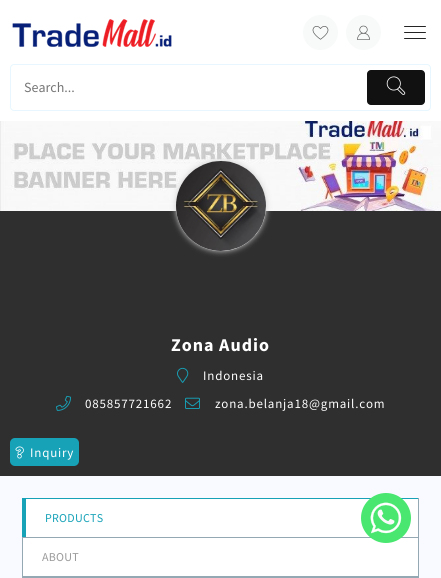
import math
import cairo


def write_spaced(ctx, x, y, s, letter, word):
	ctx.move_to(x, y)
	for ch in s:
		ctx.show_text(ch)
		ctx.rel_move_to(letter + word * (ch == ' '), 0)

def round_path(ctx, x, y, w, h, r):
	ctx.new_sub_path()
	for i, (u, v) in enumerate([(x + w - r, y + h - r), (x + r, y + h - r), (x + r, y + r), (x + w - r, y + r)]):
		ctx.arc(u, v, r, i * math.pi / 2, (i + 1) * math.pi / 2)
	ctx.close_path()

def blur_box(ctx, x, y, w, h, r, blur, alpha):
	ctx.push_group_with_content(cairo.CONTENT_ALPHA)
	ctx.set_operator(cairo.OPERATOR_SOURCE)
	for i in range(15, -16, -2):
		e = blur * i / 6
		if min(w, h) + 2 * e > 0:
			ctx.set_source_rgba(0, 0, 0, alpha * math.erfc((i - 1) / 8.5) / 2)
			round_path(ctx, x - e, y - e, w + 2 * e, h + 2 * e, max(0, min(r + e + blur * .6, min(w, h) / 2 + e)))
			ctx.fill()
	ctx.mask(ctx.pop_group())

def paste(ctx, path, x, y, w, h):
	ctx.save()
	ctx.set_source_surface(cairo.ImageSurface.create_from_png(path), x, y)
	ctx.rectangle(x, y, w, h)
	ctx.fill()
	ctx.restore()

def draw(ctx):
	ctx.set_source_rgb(0.969, 0.98, 1)
	ctx.paint()
	ctx.set_source_rgb(1, 1, 1)
	ctx.rectangle(0, 0, 441, 121)
	ctx.fill()
	paste(ctx, 'media/1.png', 12, 19, 160, 28)
	ctx.set_source_rgb(0.969, 0.973, 0.976)
	ctx.arc(320.5, 32.5, 17.5, 0, 2 * math.pi)
	ctx.fill()
	paste(ctx, 'media/2.png', 312, 26, 17, 14)
	ctx.arc(363.5, 32.5, 17.5, 0, 2 * math.pi)
	ctx.fill()
	paste(ctx, 'media/3.png', 357, 25, 13, 15)
	ctx.set_source_rgb(0.141, 0.141, 0.141)
	round_path(ctx, 404, 26, 22, 1, 0.5)
	ctx.fill()
	round_path(ctx, 404, 32, 22, 1, 0.5)
	ctx.fill()
	round_path(ctx, 404, 38, 22, 1, 0.5)
	ctx.fill()
	round_path(ctx, 10.5, 64.5, 420, 46, 3.5)
	ctx.set_source_rgb(0.906, 0.961, 1)
	ctx.set_line_width(1)
	ctx.stroke()
	ctx.select_font_face('Source Sans Pro')
	ctx.set_font_size(14)
	ctx.set_source_rgb(0.459, 0.459, 0.459)
	ctx.move_to(24, 92)
	ctx.show_text('Search...')
	ctx.set_source_rgb(0.067, 0.067, 0.067)
	round_path(ctx, 367, 70, 58, 35, 4)
	ctx.fill()
	paste(ctx, 'media/4.png', 386, 76, 20, 19)
	paste(ctx, 'media/5.png', 0, 121, 441, 90)
	ctx.set_source_rgb(0.184, 0.184, 0.184)
	ctx.rectangle(0, 211, 441, 265)
	ctx.fill()
	ctx.set_source_rgb(0.8, 0.8, 0.8)
	blur_box(ctx, 176, 161, 90, 90, 45, 3, 1)
	ctx.set_source_rgb(1, 1, 1)
	ctx.arc(221, 206, 45, 0, 2 * math.pi)
	ctx.fill()
	paste(ctx, 'media/6.png', 176, 161, 90, 90)
	ctx.select_font_face('Source Sans Pro', cairo.FONT_SLANT_NORMAL, cairo.FONT_WEIGHT_BOLD)
	ctx.set_font_size(18)
	write_spaced(ctx, 171, 351, 'Zona Audio', 1, 0)
	paste(ctx, 'media/7.png', 177, 367, 12, 16)
	ctx.select_font_face('Source Sans Pro')
	ctx.set_font_size(13)
	write_spaced(ctx, 203, 380, 'Indonesia', 0.8, 0)
	paste(ctx, 'media/8.png', 56, 395, 15, 16)
	write_spaced(ctx, 85, 408, '085857721662', 0.8, 0)
	paste(ctx, 'media/9.png', 185, 397, 15, 12)
	write_spaced(ctx, 215, 408, 'zona.belanja18@gmail.com', 0.8, 0)
	ctx.set_source_rgb(0.09, 0.635, 0.722)
	round_path(ctx, 10, 438, 69, 28, 5)
	ctx.fill()
	paste(ctx, 'media/10.png', 15, 446, 9, 13)
	ctx.set_source_rgb(1, 1, 1)
	write_spaced(ctx, 30, 457, 'Inquiry', 0.8, 0)
	ctx.rectangle(23, 499, 395, 77)
	ctx.fill()
	ctx.set_source_rgb(0.576, 0.659, 0.702)
	ctx.rectangle(22, 577, 397, 1)
	ctx.fill()
	ctx.set_source_rgb(0.09, 0.635, 0.722)
	ctx.rectangle(22, 498, 397, 1)
	ctx.fill()
	ctx.set_source_rgb(0.576, 0.659, 0.702)
	ctx.rectangle(418, 498, 1, 39)
	ctx.fill()
	ctx.set_source_rgb(0.09, 0.635, 0.722)
	ctx.rectangle(22, 498, 4, 39)
	ctx.fill()
	ctx.set_font_size(12)
	write_spaced(ctx, 45, 522, 'PRODUCTS', 0.25, 0)
	ctx.rectangle(22.5, 537.5, 396, 39)
	ctx.set_source_rgb(0.576, 0.659, 0.702)
	ctx.stroke()
	ctx.set_source_rgb(0.6, 0.6, 0.6)
	write_spaced(ctx, 42, 561, 'ABOUT', 0.25, 0)
	paste(ctx, 'media/11.png', 361, 493, 50, 50)


surface = cairo.ImageSurface(cairo.FORMAT_RGB24, 441, 578)
ctx = cairo.Context(surface)
options = cairo.FontOptions()
options.set_hint_metrics(cairo.HINT_METRICS_OFF)
options.set_hint_style(cairo.HINT_STYLE_NONE)
ctx.set_font_options(options)
ctx.set_miter_limit(4)
draw(ctx)
surface.write_to_png('image.png')
